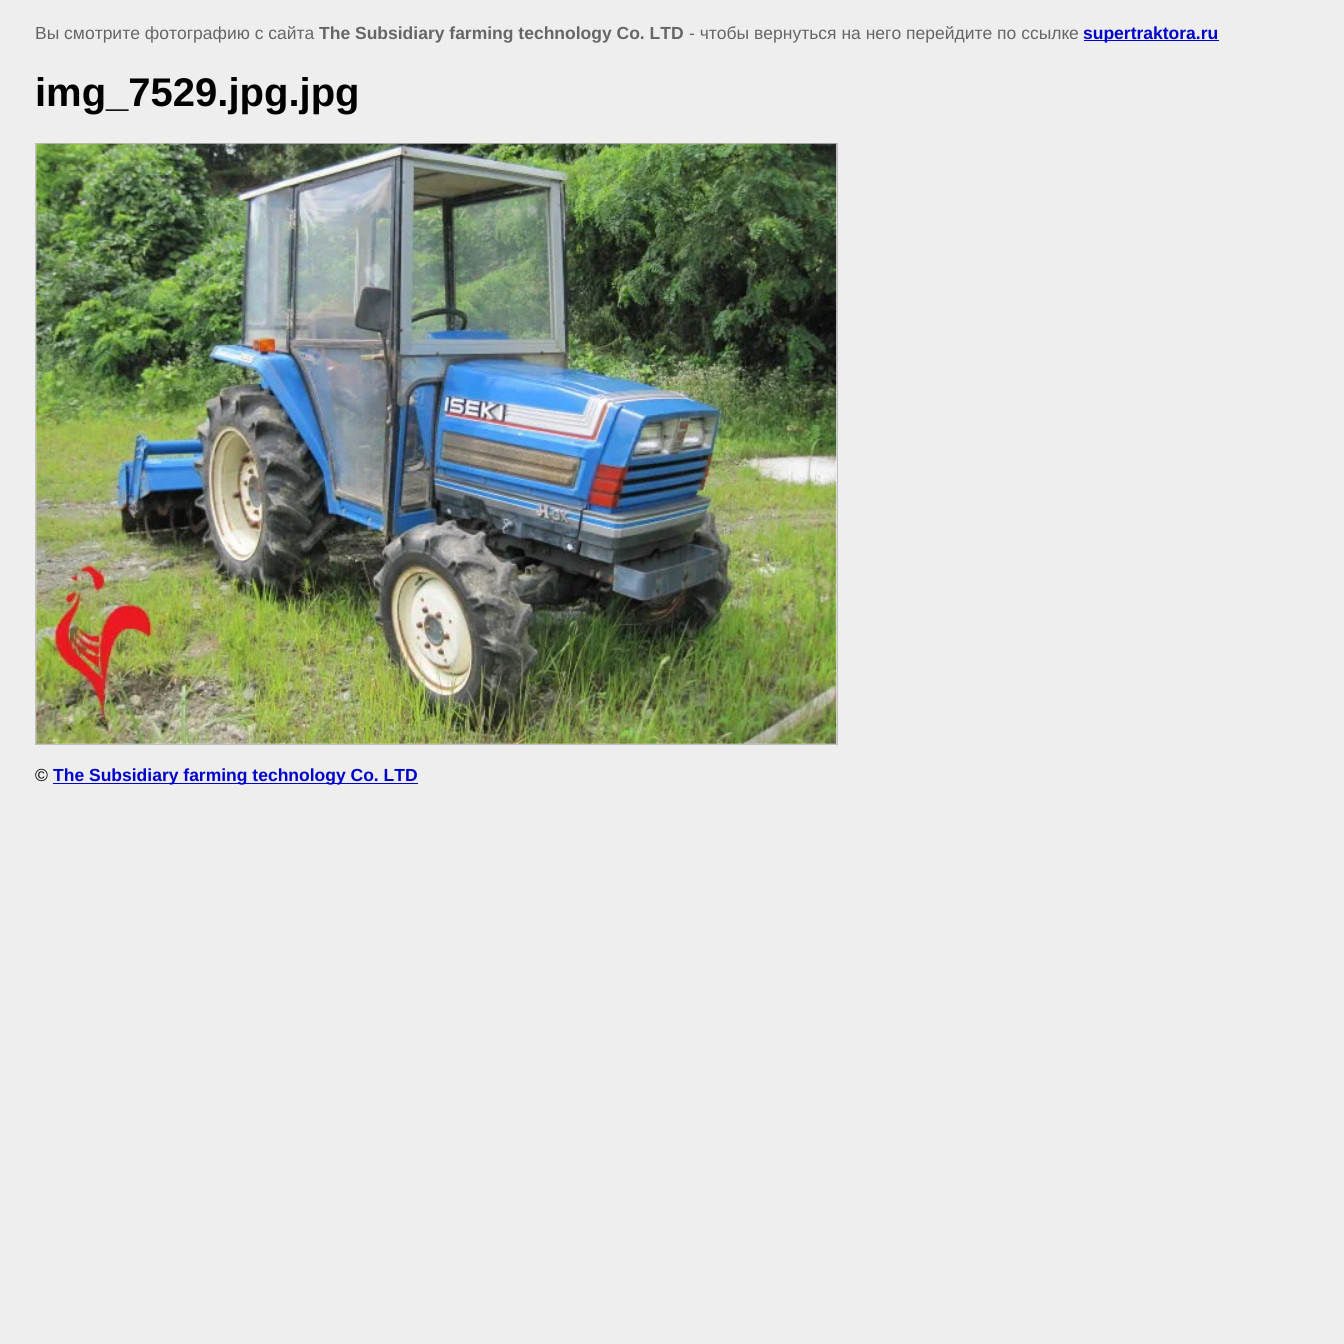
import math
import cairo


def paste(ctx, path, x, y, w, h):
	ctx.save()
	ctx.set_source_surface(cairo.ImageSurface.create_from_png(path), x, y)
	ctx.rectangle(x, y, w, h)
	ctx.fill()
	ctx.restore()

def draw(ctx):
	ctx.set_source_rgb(0.933, 0.933, 0.933)
	ctx.paint()
	ctx.select_font_face('Liberation Sans')
	ctx.set_font_size(17.5)
	ctx.set_source_rgb(0.4, 0.4, 0.4)
	ctx.move_to(35, 39)
	ctx.show_text('Вы смотрите фотографию с сайта')
	ctx.select_font_face('Liberation Sans', cairo.FONT_SLANT_NORMAL, cairo.FONT_WEIGHT_BOLD)
	ctx.move_to(319, 39)
	ctx.show_text('The Subsidiary farming technology Co. LTD')
	ctx.select_font_face('Liberation Sans')
	ctx.move_to(689, 39)
	ctx.show_text('- чтобы вернуться на него перейдите по ссылке')
	ctx.set_source_rgb(0, 0, 0.8)
	ctx.rectangle(1084, 40, 135, 1)
	ctx.fill()
	ctx.select_font_face('Liberation Sans', cairo.FONT_SLANT_NORMAL, cairo.FONT_WEIGHT_BOLD)
	ctx.move_to(1083, 39)
	ctx.show_text('supertraktora.ru')
	ctx.set_font_size(40)
	ctx.set_source_rgb(0, 0, 0)
	ctx.move_to(35, 106)
	ctx.show_text('img_7529.jpg.jpg')
	ctx.rectangle(35.5, 143.5, 802, 601)
	ctx.set_source_rgb(0.753, 0.753, 0.753)
	ctx.set_line_width(1)
	ctx.stroke()
	paste(ctx, 'media/1.png', 36, 143, 801, 601)
	ctx.select_font_face('Liberation Sans')
	ctx.set_font_size(17.5)
	ctx.set_source_rgb(0, 0, 0)
	ctx.move_to(35, 781)
	ctx.show_text('©')
	ctx.set_source_rgb(0, 0, 0.8)
	ctx.rectangle(53, 783, 365, 1)
	ctx.fill()
	ctx.select_font_face('Liberation Sans', cairo.FONT_SLANT_NORMAL, cairo.FONT_WEIGHT_BOLD)
	ctx.move_to(53, 781)
	ctx.show_text('The Subsidiary farming technology Co. LTD')


surface = cairo.ImageSurface(cairo.FORMAT_RGB24, 1344, 1344)
ctx = cairo.Context(surface)
options = cairo.FontOptions()
options.set_hint_metrics(cairo.HINT_METRICS_OFF)
options.set_hint_style(cairo.HINT_STYLE_NONE)
ctx.set_font_options(options)
ctx.set_miter_limit(4)
draw(ctx)
surface.write_to_png('image.png')
